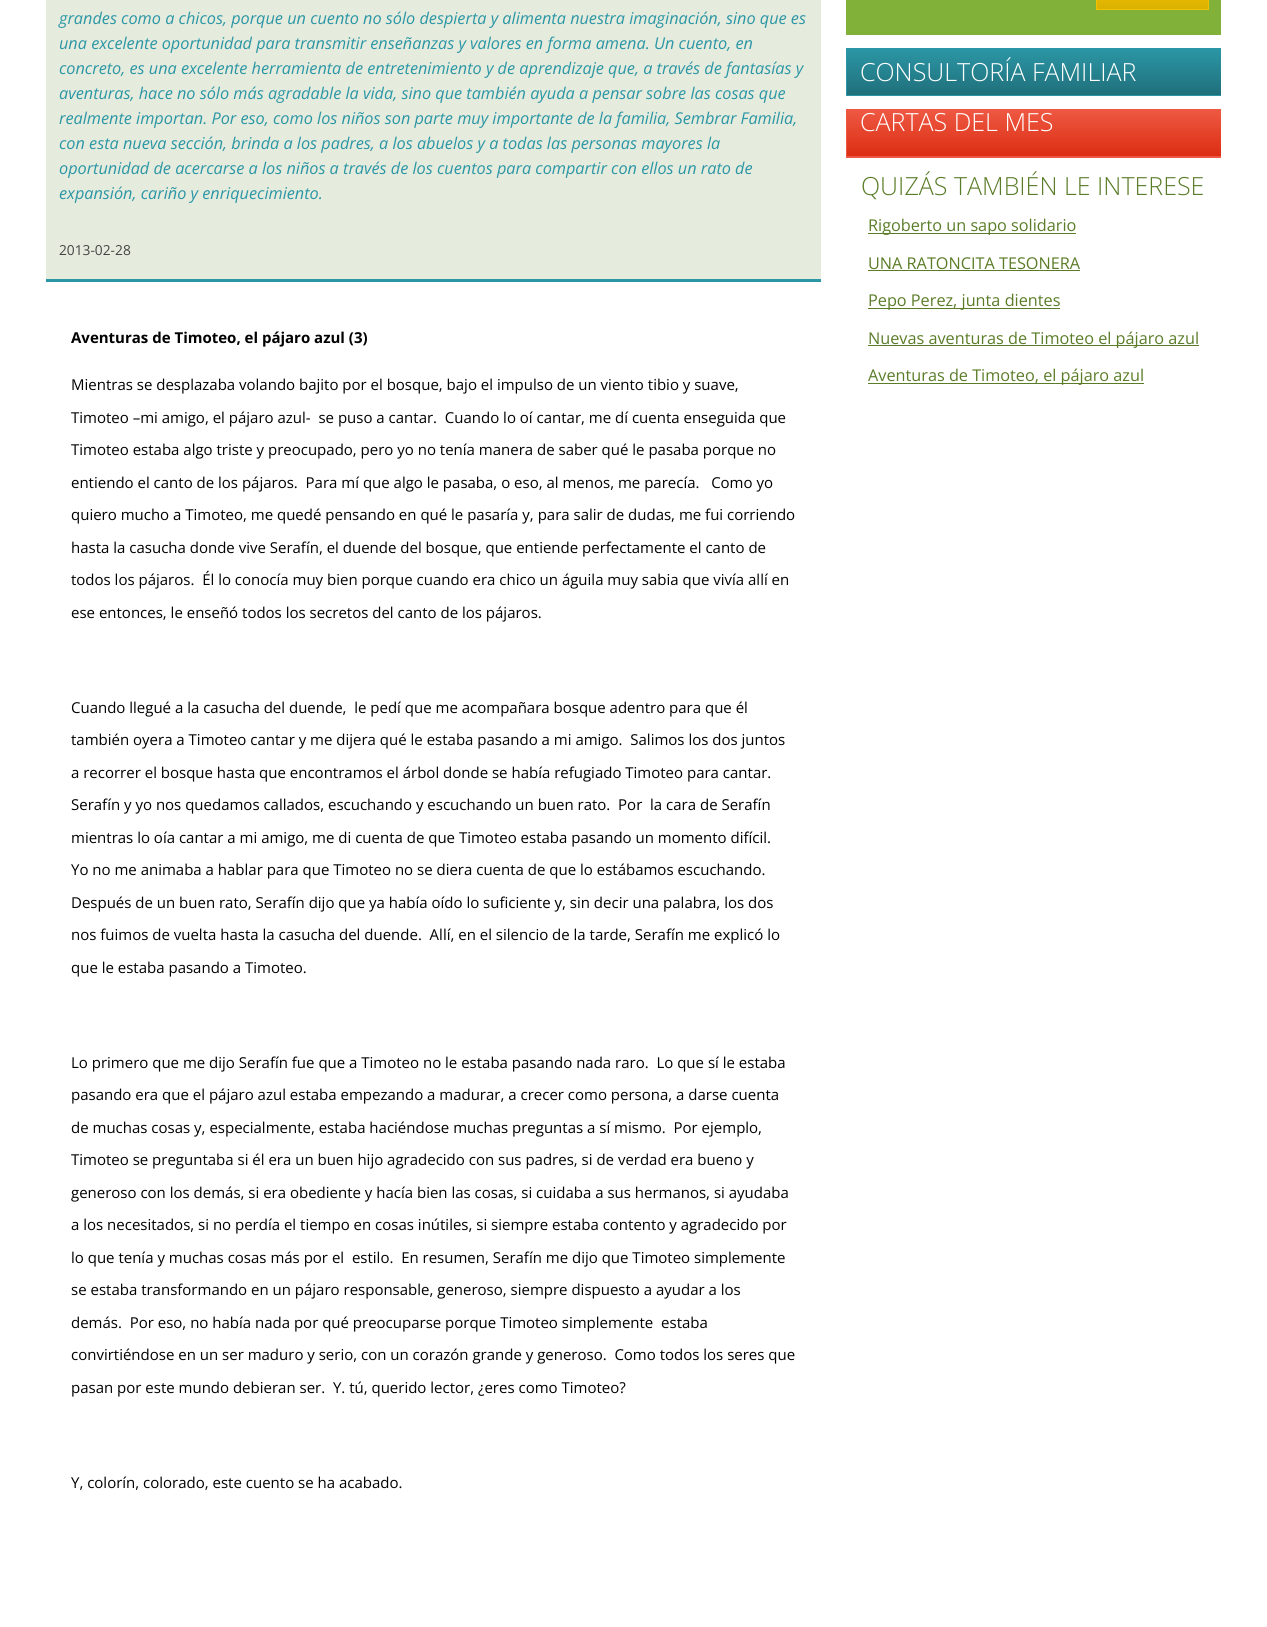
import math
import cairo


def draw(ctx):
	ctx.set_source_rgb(1, 1, 1)
	ctx.paint()
	ctx.set_source_rgb(0.898, 0.918, 0.867)
	ctx.rectangle(46, 0, 775, 279)
	ctx.fill()
	ctx.select_font_face('Open Sans', cairo.FONT_SLANT_ITALIC)
	ctx.set_font_size(16.25)
	ctx.set_source_rgb(0.169, 0.588, 0.647)
	for x, y, s in [
		(59, 24, 'grandes como a chicos, porque un cuento no sólo despierta y alimenta nuestra imaginación, sino que es'),
		(59, 49, 'una excelente oportunidad para transmitir enseñanzas y valores en forma amena. Un cuento, en'),
		(59, 74, 'concreto, es una excelente herramienta de entretenimiento y de aprendizaje que, a través de fantasías y'),
		(59, 99, 'aventuras, hace no sólo más agradable la vida, sino que también ayuda a pensar sobre las cosas que'),
		(59, 124, 'realmente importan. Por eso, como los niños son parte muy importante de la familia, Sembrar Familia,'),
		(59, 149, 'con esta nueva sección, brinda a los padres, a los abuelos y a todas las personas mayores la'),
		(59, 174, 'oportunidad de acercarse a los niños a través de los cuentos para compartir con ellos un rato de'),
		(59, 199, 'expansión, cariño y enriquecimiento.'),
	]:
		ctx.move_to(x, y)
		ctx.show_text(s)
	ctx.select_font_face('Open Sans')
	ctx.set_font_size(13.75)
	ctx.set_source_rgb(0.267, 0.267, 0.267)
	ctx.move_to(59, 255)
	ctx.show_text('2013-02-28')
	ctx.set_source_rgb(0.169, 0.588, 0.647)
	ctx.rectangle(46, 279, 775, 3)
	ctx.fill()
	ctx.select_font_face('Open Sans', cairo.FONT_SLANT_NORMAL, cairo.FONT_WEIGHT_BOLD)
	ctx.set_font_size(15)
	ctx.set_source_rgb(0, 0, 0)
	ctx.move_to(71, 343)
	ctx.show_text('Aventuras de Timoteo, el pájaro azul (3)')
	ctx.select_font_face('Open Sans')
	for x, y, s in [
		(71, 390, 'Mientras se desplazaba volando bajito por el bosque, bajo el impulso de un viento tibio y suave,'),
		(71, 423, 'Timoteo –mi amigo, el pájaro azul-  se puso a cantar.  Cuando lo oí cantar, me dí cuenta enseguida que'),
		(71, 455, 'Timoteo estaba algo triste y preocupado, pero yo no tenía manera de saber qué le pasaba porque no'),
		(71, 488, 'entiendo el canto de los pájaros.  Para mí que algo le pasaba, o eso, al menos, me parecía.   Como yo'),
		(71, 520, 'quiero mucho a Timoteo, me quedé pensando en qué le pasaría y, para salir de dudas, me fui corriendo'),
		(71, 553, 'hasta la casucha donde vive Serafín, el duende del bosque, que entiende perfectamente el canto de'),
		(71, 585, 'todos los pájaros.  Él lo conocía muy bien porque cuando era chico un águila muy sabia que vivía allí en'),
		(71, 618, 'ese entonces, le enseñó todos los secretos del canto de los pájaros.'),
		(71, 713, 'Cuando llegué a la casucha del duende,  le pedí que me acompañara bosque adentro para que él'),
		(71, 745, 'también oyera a Timoteo cantar y me dijera qué le estaba pasando a mi amigo.  Salimos los dos juntos'),
		(71, 778, 'a recorrer el bosque hasta que encontramos el árbol donde se había refugiado Timoteo para cantar.'),
		(71, 810, 'Serafín y yo nos quedamos callados, escuchando y escuchando un buen rato.  Por  la cara de Serafín'),
		(71, 843, 'mientras lo oía cantar a mi amigo, me di cuenta de que Timoteo estaba pasando un momento difícil.'),
		(71, 875, 'Yo no me animaba a hablar para que Timoteo no se diera cuenta de que lo estábamos escuchando.'),
		(71, 908, 'Después de un buen rato, Serafín dijo que ya había oído lo suficiente y, sin decir una palabra, los dos'),
		(71, 940, 'nos fuimos de vuelta hasta la casucha del duende.  Allí, en el silencio de la tarde, Serafín me explicó lo'),
		(71, 973, 'que le estaba pasando a Timoteo.'),
		(71, 1068, 'Lo primero que me dijo Serafín fue que a Timoteo no le estaba pasando nada raro.  Lo que sí le estaba'),
		(71, 1100, 'pasando era que el pájaro azul estaba empezando a madurar, a crecer como persona, a darse cuenta'),
		(71, 1133, 'de muchas cosas y, especialmente, estaba haciéndose muchas preguntas a sí mismo.  Por ejemplo,'),
		(71, 1165, 'Timoteo se preguntaba si él era un buen hijo agradecido con sus padres, si de verdad era bueno y'),
		(71, 1198, 'generoso con los demás, si era obediente y hacía bien las cosas, si cuidaba a sus hermanos, si ayudaba'),
		(71, 1230, 'a los necesitados, si no perdía el tiempo en cosas inútiles, si siempre estaba contento y agradecido por'),
		(71, 1263, 'lo que tenía y muchas cosas más por el  estilo.  En resumen, Serafín me dijo que Timoteo simplemente'),
		(71, 1295, 'se estaba transformando en un pájaro responsable, generoso, siempre dispuesto a ayudar a los'),
		(71, 1328, 'demás.  Por eso, no había nada por qué preocuparse porque Timoteo simplemente  estaba'),
		(71, 1360, 'convirtiéndose en un ser maduro y serio, con un corazón grande y generoso.  Como todos los seres que'),
		(71, 1393, 'pasan por este mundo debieran ser.  Y. tú, querido lector, ¿eres como Timoteo?'),
		(71, 1488, 'Y, colorín, colorado, este cuento se ha acabado.'),
	]:
		ctx.move_to(x, y)
		ctx.show_text(s)
	ctx.set_source_rgb(0.506, 0.694, 0.22)
	ctx.rectangle(846, 0, 375, 35)
	ctx.fill()
	gradient = cairo.LinearGradient(1153, -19, 1153, 9)
	gradient.add_color_stop_rgba(0, 0.957, 0.769, 0, 1)
	gradient.add_color_stop_rgba(1, 0.859, 0.694, 0.008, 1)
	ctx.set_source(gradient)
	ctx.rectangle(1097, 0, 111, 9)
	ctx.fill()
	ctx.rectangle(1096.5, -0.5, 112, 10)
	ctx.set_source_rgb(0.949, 0.761, 0)
	ctx.set_line_width(1)
	ctx.stroke()
	gradient = cairo.LinearGradient(1035, 49, 1035, 95)
	gradient.add_color_stop_rgba(0, 0.169, 0.588, 0.647, 1)
	gradient.add_color_stop_rgba(1, 0.125, 0.439, 0.482, 1)
	ctx.set_source(gradient)
	ctx.rectangle(847, 49, 374, 46)
	ctx.fill()
	ctx.save()
	ctx.rectangle(46, 0, 1175, 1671)
	ctx.clip()
	ctx.rectangle(846.5, 48.5, 377, 47)
	ctx.set_source_rgb(0.169, 0.588, 0.647)
	ctx.stroke()
	ctx.restore()
	ctx.select_font_face('Open Sans Light')
	ctx.set_font_size(25)
	ctx.set_source_rgb(1, 1, 1)
	ctx.move_to(860, 81)
	ctx.show_text('CONSULTORÍA FAMILIAR')
	ctx.set_source_rgb(0.933, 0.345, 0.259)
	ctx.rectangle(847, 156, 374, 1)
	ctx.fill()
	gradient = cairo.LinearGradient(1035, 110, 1035, 156)
	gradient.add_color_stop_rgba(0, 0.933, 0.345, 0.259, 1)
	gradient.add_color_stop_rgba(1, 0.863, 0.18, 0.078, 1)
	ctx.set_source(gradient)
	ctx.rectangle(847, 110, 374, 46)
	ctx.fill()
	ctx.save()
	ctx.rectangle(46, 0, 1175, 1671)
	ctx.clip()
	ctx.rectangle(846.5, 109.5, 377, 48)
	ctx.set_source_rgb(0.933, 0.345, 0.259)
	ctx.stroke()
	ctx.restore()
	ctx.set_source_rgb(1, 1, 1)
	ctx.move_to(860, 131)
	ctx.show_text('CARTAS DEL MES')
	ctx.set_source_rgb(0.353, 0.486, 0.153)
	ctx.move_to(861, 195)
	ctx.show_text('QUIZÁS TAMBIÉN LE INTERESE')
	ctx.rectangle(868, 233, 208, 1)
	ctx.fill()
	ctx.select_font_face('Open Sans')
	ctx.set_font_size(16.25)
	ctx.move_to(868, 231)
	ctx.show_text('Rigoberto un sapo solidario')
	ctx.move_to(868, 269)
	ctx.show_text('UNA RATONCITA TESONERA')
	ctx.rectangle(868, 270, 212, 1)
	ctx.fill()
	ctx.rectangle(868, 308, 192, 1)
	ctx.fill()
	ctx.move_to(868, 306)
	ctx.show_text('Pepo Perez, junta dientes')
	ctx.rectangle(868, 345, 331, 1)
	ctx.fill()
	ctx.move_to(868, 344)
	ctx.show_text('Nuevas aventuras de Timoteo el pájaro azul')
	ctx.rectangle(868, 383, 276, 1)
	ctx.fill()
	ctx.move_to(868, 381)
	ctx.show_text('Aventuras de Timoteo, el pájaro azul')


surface = cairo.ImageSurface(cairo.FORMAT_RGB24, 1267, 1627)
ctx = cairo.Context(surface)
options = cairo.FontOptions()
options.set_hint_metrics(cairo.HINT_METRICS_OFF)
options.set_hint_style(cairo.HINT_STYLE_NONE)
ctx.set_font_options(options)
ctx.set_miter_limit(4)
draw(ctx)
surface.write_to_png('image.png')
